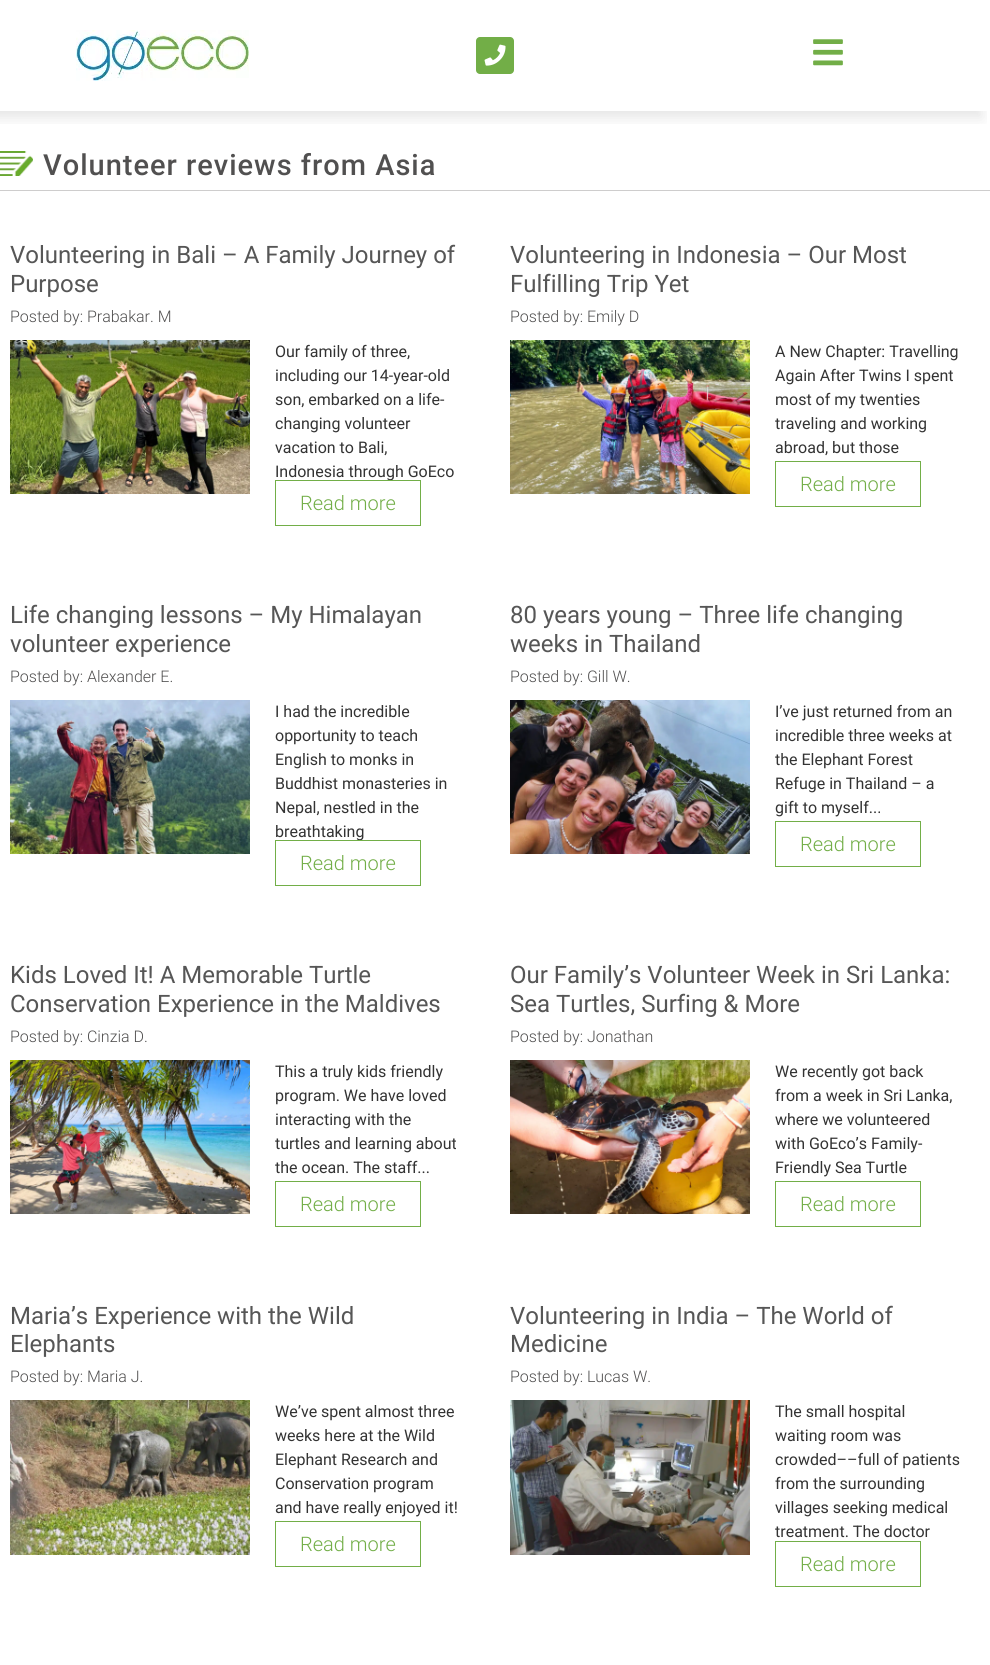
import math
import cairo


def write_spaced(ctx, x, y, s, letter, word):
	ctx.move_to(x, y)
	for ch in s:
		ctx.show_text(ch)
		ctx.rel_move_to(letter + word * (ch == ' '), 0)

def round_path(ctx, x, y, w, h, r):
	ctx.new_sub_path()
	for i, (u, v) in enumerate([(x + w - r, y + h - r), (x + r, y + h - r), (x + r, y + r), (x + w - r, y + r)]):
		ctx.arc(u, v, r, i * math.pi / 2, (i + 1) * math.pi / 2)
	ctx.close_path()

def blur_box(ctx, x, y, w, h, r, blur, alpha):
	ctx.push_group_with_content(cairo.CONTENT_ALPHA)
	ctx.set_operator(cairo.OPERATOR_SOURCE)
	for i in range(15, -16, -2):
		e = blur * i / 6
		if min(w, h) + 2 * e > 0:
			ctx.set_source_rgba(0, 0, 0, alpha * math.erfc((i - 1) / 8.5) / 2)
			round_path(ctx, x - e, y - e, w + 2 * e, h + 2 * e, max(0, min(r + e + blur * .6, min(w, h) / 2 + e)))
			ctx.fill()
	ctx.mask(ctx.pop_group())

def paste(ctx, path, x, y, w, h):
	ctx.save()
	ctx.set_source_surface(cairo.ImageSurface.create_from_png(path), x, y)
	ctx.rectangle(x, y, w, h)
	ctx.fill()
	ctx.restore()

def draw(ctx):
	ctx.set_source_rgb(1, 1, 1)
	ctx.paint()
	ctx.save()
	ctx.rectangle(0, 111, 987, 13)
	ctx.clip()
	ctx.set_source_rgb(0, 0, 0)
	blur_box(ctx, -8, 7, 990, 111, 0, 7, 0.1)
	ctx.restore()
	paste(ctx, 'media/1.png', 76, 30, 173, 51)
	ctx.set_source_rgb(0.447, 0.682, 0.278)
	round_path(ctx, 476, 37, 38, 37, 4)
	ctx.fill()
	paste(ctx, 'media/2.png', 484, 44, 22, 22)
	paste(ctx, 'media/3.png', 813, 39, 30, 27)
	ctx.set_source_rgb(0.808, 0.804, 0.804)
	ctx.rectangle(0, 190, 990, 1)
	ctx.fill()
	paste(ctx, 'media/4.png', 0, 151, 33, 25)
	ctx.select_font_face('Roboto Medium')
	ctx.set_font_size(29)
	ctx.set_source_rgb(0.318, 0.314, 0.314)
	write_spaced(ctx, 43, 175, 'Volunteer reviews from Asia', 1, 0)
	ctx.select_font_face('Roboto')
	ctx.set_font_size(24)
	ctx.set_source_rgb(0.337, 0.337, 0.337)
	ctx.move_to(10, 263)
	ctx.show_text('Volunteering in Bali – A Family Journey of')
	ctx.move_to(10, 292)
	ctx.show_text('Purpose')
	ctx.select_font_face('Roboto Light')
	ctx.set_font_size(16)
	ctx.set_source_rgb(0.318, 0.314, 0.314)
	ctx.move_to(10, 322)
	ctx.show_text('Posted by: Prabakar. M')
	paste(ctx, 'media/5.png', 10, 340, 240, 154)
	ctx.select_font_face('Roboto')
	ctx.set_source_rgb(0.2, 0.2, 0.2)
	for x, y, s in [
		(275, 357, 'Our family of three,'),
		(275, 381, 'including our 14-year-old'),
		(275, 405, 'son, embarked on a life-'),
		(275, 429, 'changing volunteer'),
		(275, 453, 'vacation to Bali,'),
		(275, 477, 'Indonesia through GoEco'),
	]:
		ctx.move_to(x, y)
		ctx.show_text(s)
	ctx.rectangle(275.5, 480.5, 145, 45)
	ctx.set_source_rgb(0.447, 0.682, 0.278)
	ctx.set_line_width(1)
	ctx.stroke()
	ctx.select_font_face('Roboto Light')
	ctx.set_font_size(20)
	ctx.move_to(300, 510)
	ctx.show_text('Read more')
	ctx.select_font_face('Roboto')
	ctx.set_font_size(24)
	ctx.set_source_rgb(0.337, 0.337, 0.337)
	ctx.move_to(510, 263)
	ctx.show_text('Volunteering in Indonesia – Our Most')
	ctx.move_to(510, 292)
	ctx.show_text('Fulfilling Trip Yet')
	ctx.select_font_face('Roboto Light')
	ctx.set_font_size(16)
	ctx.set_source_rgb(0.318, 0.314, 0.314)
	ctx.move_to(510, 322)
	ctx.show_text('Posted by: Emily D')
	paste(ctx, 'media/6.png', 510, 340, 240, 154)
	ctx.select_font_face('Roboto')
	ctx.set_source_rgb(0.2, 0.2, 0.2)
	for x, y, s in [
		(775, 357, 'A New Chapter: Travelling'),
		(775, 381, 'Again After Twins I spent'),
		(775, 405, 'most of my twenties'),
		(775, 429, 'traveling and working'),
		(775, 453, 'abroad, but those'),
	]:
		ctx.move_to(x, y)
		ctx.show_text(s)
	ctx.rectangle(775.5, 461.5, 145, 45)
	ctx.set_source_rgb(0.447, 0.682, 0.278)
	ctx.stroke()
	ctx.select_font_face('Roboto Light')
	ctx.set_font_size(20)
	ctx.move_to(800, 491)
	ctx.show_text('Read more')
	ctx.select_font_face('Roboto')
	ctx.set_font_size(24)
	ctx.set_source_rgb(0.337, 0.337, 0.337)
	ctx.move_to(10, 623)
	ctx.show_text('Life changing lessons – My Himalayan')
	ctx.move_to(10, 652)
	ctx.show_text('volunteer experience')
	ctx.select_font_face('Roboto Light')
	ctx.set_font_size(16)
	ctx.set_source_rgb(0.318, 0.314, 0.314)
	ctx.move_to(10, 682)
	ctx.show_text('Posted by: Alexander E.')
	paste(ctx, 'media/7.png', 10, 700, 240, 154)
	ctx.select_font_face('Roboto')
	ctx.set_source_rgb(0.2, 0.2, 0.2)
	for x, y, s in [
		(275, 717, 'I had the incredible'),
		(275, 741, 'opportunity to teach'),
		(275, 765, 'English to monks in'),
		(275, 789, 'Buddhist monasteries in'),
		(275, 813, 'Nepal, nestled in the'),
		(275, 837, 'breathtaking'),
	]:
		ctx.move_to(x, y)
		ctx.show_text(s)
	ctx.rectangle(275.5, 840.5, 145, 45)
	ctx.set_source_rgb(0.447, 0.682, 0.278)
	ctx.stroke()
	ctx.select_font_face('Roboto Light')
	ctx.set_font_size(20)
	ctx.move_to(300, 870)
	ctx.show_text('Read more')
	ctx.select_font_face('Roboto')
	ctx.set_font_size(24)
	ctx.set_source_rgb(0.337, 0.337, 0.337)
	ctx.move_to(510, 623)
	ctx.show_text('80 years young – Three life changing')
	ctx.move_to(510, 652)
	ctx.show_text('weeks in Thailand')
	ctx.select_font_face('Roboto Light')
	ctx.set_font_size(16)
	ctx.set_source_rgb(0.318, 0.314, 0.314)
	ctx.move_to(510, 682)
	ctx.show_text('Posted by: Gill W.')
	paste(ctx, 'media/8.png', 510, 700, 240, 154)
	ctx.select_font_face('Roboto')
	ctx.set_source_rgb(0.2, 0.2, 0.2)
	for x, y, s in [
		(775, 717, 'I’ve just returned from an'),
		(775, 741, 'incredible three weeks at'),
		(775, 765, 'the Elephant Forest'),
		(775, 789, 'Refuge in Thailand – a'),
		(775, 813, 'gift to myself...'),
	]:
		ctx.move_to(x, y)
		ctx.show_text(s)
	ctx.rectangle(775.5, 821.5, 145, 45)
	ctx.set_source_rgb(0.447, 0.682, 0.278)
	ctx.stroke()
	ctx.select_font_face('Roboto Light')
	ctx.set_font_size(20)
	ctx.move_to(800, 851)
	ctx.show_text('Read more')
	ctx.select_font_face('Roboto')
	ctx.set_font_size(24)
	ctx.set_source_rgb(0.337, 0.337, 0.337)
	ctx.move_to(10, 983)
	ctx.show_text('Kids Loved It! A Memorable Turtle')
	ctx.move_to(10, 1012)
	ctx.show_text('Conservation Experience in the Maldives')
	ctx.select_font_face('Roboto Light')
	ctx.set_font_size(16)
	ctx.set_source_rgb(0.318, 0.314, 0.314)
	ctx.move_to(10, 1042)
	ctx.show_text('Posted by: Cinzia D.')
	paste(ctx, 'media/9.png', 10, 1060, 240, 154)
	ctx.select_font_face('Roboto')
	ctx.set_source_rgb(0.2, 0.2, 0.2)
	for x, y, s in [
		(275, 1077, 'This a truly kids friendly'),
		(275, 1101, 'program. We have loved'),
		(275, 1125, 'interacting with the'),
		(275, 1149, 'turtles and learning about'),
		(275, 1173, 'the ocean. The staff...'),
	]:
		ctx.move_to(x, y)
		ctx.show_text(s)
	ctx.rectangle(275.5, 1181.5, 145, 45)
	ctx.set_source_rgb(0.447, 0.682, 0.278)
	ctx.stroke()
	ctx.select_font_face('Roboto Light')
	ctx.set_font_size(20)
	ctx.move_to(300, 1211)
	ctx.show_text('Read more')
	ctx.select_font_face('Roboto')
	ctx.set_font_size(24)
	ctx.set_source_rgb(0.337, 0.337, 0.337)
	ctx.move_to(510, 983)
	ctx.show_text('Our Family’s Volunteer Week in Sri Lanka:')
	ctx.move_to(510, 1012)
	ctx.show_text('Sea Turtles, Surfing & More')
	ctx.select_font_face('Roboto Light')
	ctx.set_font_size(16)
	ctx.set_source_rgb(0.318, 0.314, 0.314)
	ctx.move_to(510, 1042)
	ctx.show_text('Posted by: Jonathan')
	paste(ctx, 'media/10.png', 510, 1060, 240, 154)
	ctx.select_font_face('Roboto')
	ctx.set_source_rgb(0.2, 0.2, 0.2)
	for x, y, s in [
		(775, 1077, 'We recently got back'),
		(775, 1101, 'from a week in Sri Lanka,'),
		(775, 1125, 'where we volunteered'),
		(775, 1149, 'with GoEco’s Family-'),
		(775, 1173, 'Friendly Sea Turtle'),
	]:
		ctx.move_to(x, y)
		ctx.show_text(s)
	ctx.rectangle(775.5, 1181.5, 145, 45)
	ctx.set_source_rgb(0.447, 0.682, 0.278)
	ctx.stroke()
	ctx.select_font_face('Roboto Light')
	ctx.set_font_size(20)
	ctx.move_to(800, 1211)
	ctx.show_text('Read more')
	ctx.select_font_face('Roboto')
	ctx.set_font_size(24)
	ctx.set_source_rgb(0.337, 0.337, 0.337)
	ctx.move_to(10, 1324)
	ctx.show_text('Maria’s Experience with the Wild')
	ctx.move_to(10, 1352)
	ctx.show_text('Elephants')
	ctx.select_font_face('Roboto Light')
	ctx.set_font_size(16)
	ctx.set_source_rgb(0.318, 0.314, 0.314)
	ctx.move_to(10, 1382)
	ctx.show_text('Posted by: Maria J.')
	paste(ctx, 'media/11.png', 10, 1400, 240, 155)
	ctx.select_font_face('Roboto')
	ctx.set_source_rgb(0.2, 0.2, 0.2)
	for x, y, s in [
		(275, 1417, 'We’ve spent almost three'),
		(275, 1441, 'weeks here at the Wild'),
		(275, 1465, 'Elephant Research and'),
		(275, 1489, 'Conservation program'),
		(275, 1513, 'and have really enjoyed it!'),
	]:
		ctx.move_to(x, y)
		ctx.show_text(s)
	ctx.rectangle(275.5, 1521.5, 145, 45)
	ctx.set_source_rgb(0.447, 0.682, 0.278)
	ctx.stroke()
	ctx.select_font_face('Roboto Light')
	ctx.set_font_size(20)
	ctx.move_to(300, 1551)
	ctx.show_text('Read more')
	ctx.select_font_face('Roboto')
	ctx.set_font_size(24)
	ctx.set_source_rgb(0.337, 0.337, 0.337)
	ctx.move_to(510, 1324)
	ctx.show_text('Volunteering in India – The World of')
	ctx.move_to(510, 1352)
	ctx.show_text('Medicine')
	ctx.select_font_face('Roboto Light')
	ctx.set_font_size(16)
	ctx.set_source_rgb(0.318, 0.314, 0.314)
	ctx.move_to(510, 1382)
	ctx.show_text('Posted by: Lucas W.')
	paste(ctx, 'media/12.png', 510, 1400, 240, 155)
	ctx.select_font_face('Roboto')
	ctx.set_source_rgb(0.2, 0.2, 0.2)
	for x, y, s in [
		(775, 1417, 'The small hospital'),
		(775, 1441, 'waiting room was'),
		(775, 1465, 'crowded––full of patients'),
		(775, 1489, 'from the surrounding'),
		(775, 1513, 'villages seeking medical'),
		(775, 1537, 'treatment. The doctor'),
	]:
		ctx.move_to(x, y)
		ctx.show_text(s)
	ctx.rectangle(775.5, 1541.5, 145, 45)
	ctx.set_source_rgb(0.447, 0.682, 0.278)
	ctx.stroke()
	ctx.select_font_face('Roboto Light')
	ctx.set_font_size(20)
	ctx.move_to(800, 1571)
	ctx.show_text('Read more')


surface = cairo.ImageSurface(cairo.FORMAT_RGB24, 990, 1665)
ctx = cairo.Context(surface)
options = cairo.FontOptions()
options.set_hint_metrics(cairo.HINT_METRICS_OFF)
options.set_hint_style(cairo.HINT_STYLE_NONE)
ctx.set_font_options(options)
ctx.set_miter_limit(4)
draw(ctx)
surface.write_to_png('image.png')
